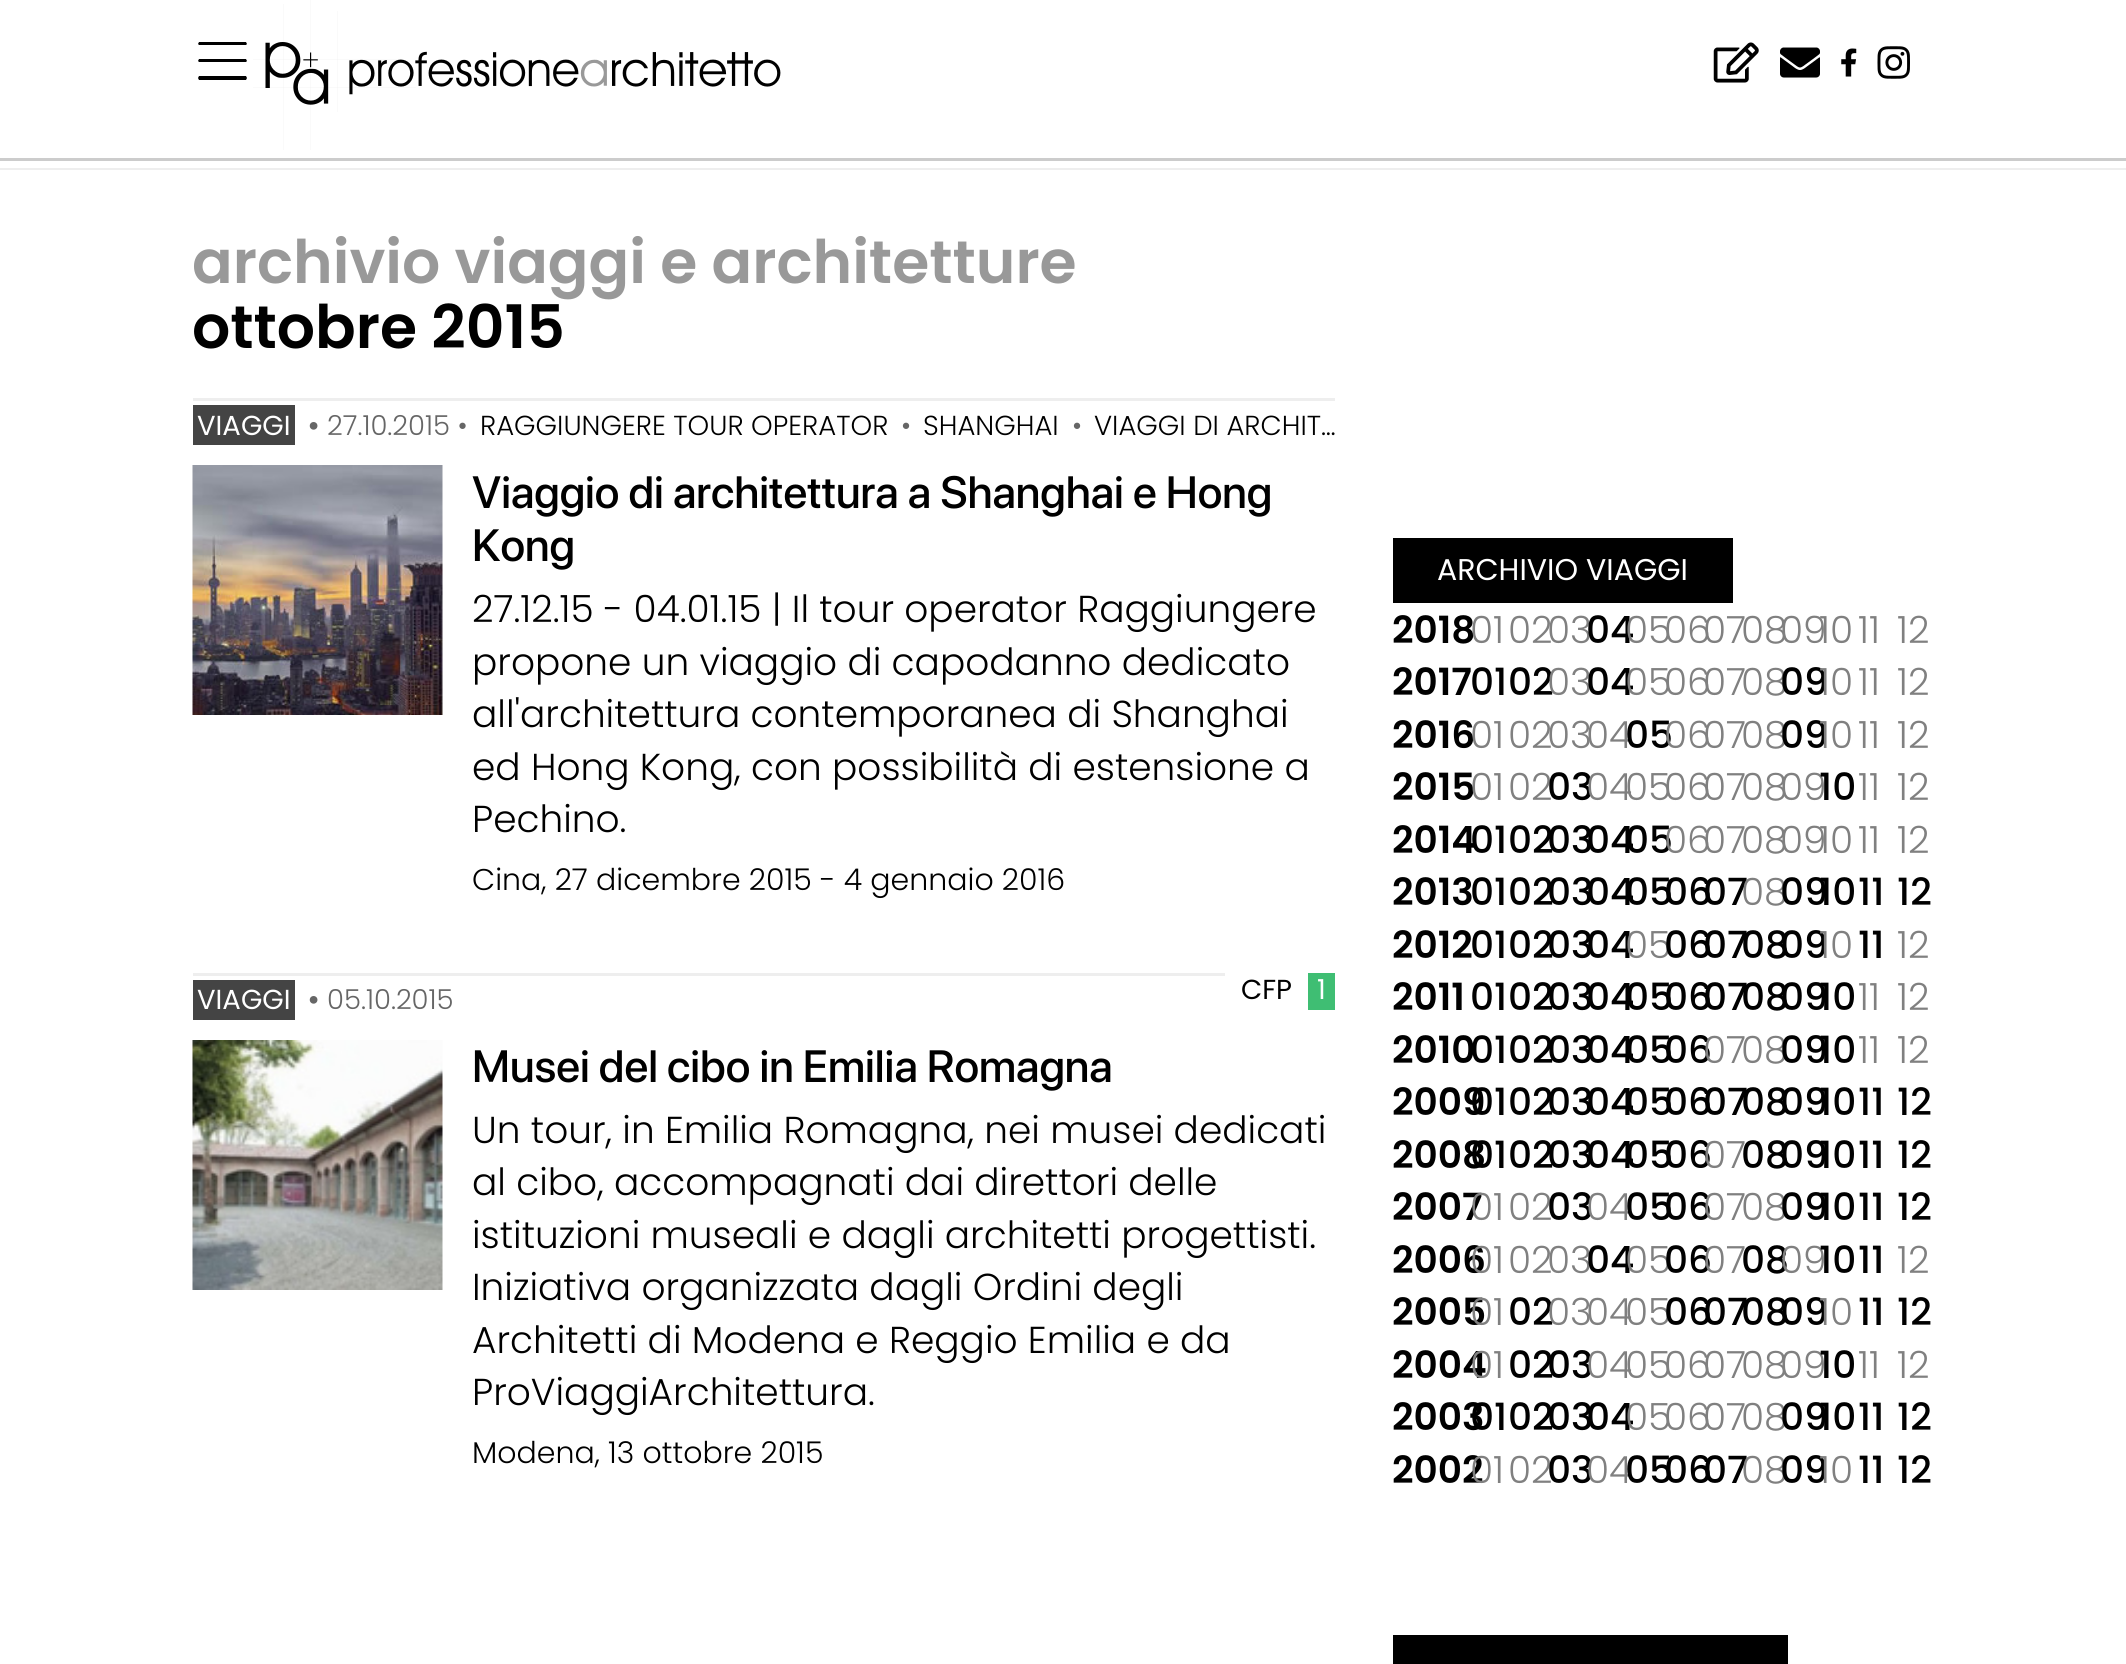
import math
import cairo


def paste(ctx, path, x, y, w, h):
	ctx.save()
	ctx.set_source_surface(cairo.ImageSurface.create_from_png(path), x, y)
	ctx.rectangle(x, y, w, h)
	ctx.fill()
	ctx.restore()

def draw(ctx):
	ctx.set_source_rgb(1, 1, 1)
	ctx.paint()
	ctx.set_source_rgb(0.8, 0.8, 0.8)
	ctx.rectangle(0, 158, 2126, 3)
	ctx.fill()
	ctx.set_source_rgb(0, 0, 0)
	ctx.new_path()
	ctx.move_to(198, 44)
	ctx.line_to(199, 42)
	ctx.line_to(246, 42)
	ctx.line_to(247, 44)
	ctx.line_to(246, 45)
	ctx.line_to(199, 45)
	ctx.close_path()
	ctx.move_to(198, 61)
	ctx.line_to(199, 59)
	ctx.line_to(246, 59)
	ctx.line_to(247, 61)
	ctx.line_to(246, 62)
	ctx.line_to(199, 62)
	ctx.close_path()
	ctx.move_to(247, 78)
	ctx.line_to(246, 80)
	ctx.line_to(199, 80)
	ctx.line_to(198, 78)
	ctx.line_to(199, 76)
	ctx.line_to(246, 76)
	ctx.close_path()
	ctx.fill()
	paste(ctx, 'media/1.png', 253, 0, 528, 150)
	paste(ctx, 'media/2.png', 1713, 42, 46, 41)
	paste(ctx, 'media/3.png', 1780, 47, 40, 31)
	paste(ctx, 'media/4.png', 1841, 48, 16, 29)
	paste(ctx, 'media/5.png', 1877, 46, 33, 33)
	ctx.set_source_rgb(0.933, 0.933, 0.933)
	ctx.rectangle(0, 168, 2126, 2)
	ctx.fill()
	ctx.select_font_face('Poppins SemiBold')
	ctx.set_font_size(60)
	ctx.set_source_rgb(0.6, 0.6, 0.6)
	ctx.move_to(192, 283)
	ctx.show_text('archivio viaggi e architetture')
	ctx.set_source_rgb(0, 0, 0)
	ctx.move_to(192, 348)
	ctx.show_text('ottobre 2015')
	ctx.set_source_rgb(0.933, 0.933, 0.933)
	ctx.rectangle(193, 398, 1142, 3)
	ctx.fill()
	ctx.set_source_rgb(0.267, 0.267, 0.267)
	ctx.rectangle(193, 405, 102, 40)
	ctx.fill()
	ctx.select_font_face('Poppins')
	ctx.set_font_size(27.5)
	ctx.set_source_rgb(1, 1, 1)
	ctx.move_to(197, 435)
	ctx.show_text('VIAGGI')
	ctx.select_font_face('Poppins SemiBold')
	ctx.set_source_rgb(0.4, 0.4, 0.4)
	ctx.move_to(307, 435)
	ctx.show_text('•')
	ctx.select_font_face('Poppins Light')
	ctx.move_to(327, 435)
	ctx.show_text('27.10.2015 •')
	ctx.set_source_rgb(0, 0, 0)
	ctx.move_to(480, 435)
	ctx.show_text('RAGGIUNGERE TOUR OPERATOR')
	ctx.set_source_rgb(0.4, 0.4, 0.4)
	ctx.move_to(901, 435)
	ctx.show_text('•')
	ctx.set_source_rgb(0, 0, 0)
	ctx.move_to(923, 435)
	ctx.show_text('SHANGHAI')
	ctx.set_source_rgb(0.4, 0.4, 0.4)
	ctx.move_to(1072, 435)
	ctx.show_text('•')
	ctx.set_source_rgb(0, 0, 0)
	ctx.move_to(1094, 435)
	ctx.show_text('VIAGGI DI ARCHIT…')
	paste(ctx, 'media/6.png', 192, 465, 251, 250)
	ctx.select_font_face('SF Pro Display Medium')
	ctx.set_font_size(45)
	ctx.move_to(472, 508)
	ctx.show_text('Viaggio di architettura a Shanghai e Hong')
	ctx.move_to(472, 561)
	ctx.show_text('Kong')
	ctx.select_font_face('Poppins Light')
	ctx.set_font_size(37.5)
	for x, y, s in [
		(472, 622, '27.12.15 - 04.01.15 | Il tour operator Raggiungere'),
		(472, 675, 'propone un viaggio di capodanno dedicato'),
		(472, 727, 'all\'architettura contemporanea di Shanghai'),
		(472, 780, 'ed Hong Kong, con possibilità di estensione a'),
		(472, 832, 'Pechino.'),
	]:
		ctx.move_to(x, y)
		ctx.show_text(s)
	ctx.set_font_size(30)
	ctx.move_to(472, 890)
	ctx.show_text('Cina, 27 dicembre 2015 - 4 gennaio 2016')
	ctx.set_source_rgb(0.933, 0.933, 0.933)
	ctx.rectangle(193, 973, 1032, 3)
	ctx.fill()
	ctx.set_source_rgb(0.267, 0.267, 0.267)
	ctx.rectangle(193, 980, 102, 40)
	ctx.fill()
	ctx.select_font_face('Poppins')
	ctx.set_font_size(27.5)
	ctx.set_source_rgb(1, 1, 1)
	ctx.move_to(197, 1009)
	ctx.show_text('VIAGGI')
	ctx.select_font_face('Poppins SemiBold')
	ctx.set_source_rgb(0.4, 0.4, 0.4)
	ctx.move_to(307, 1009)
	ctx.show_text('•')
	ctx.select_font_face('Poppins Light')
	ctx.move_to(327, 1009)
	ctx.show_text('05.10.2015')
	ctx.set_source_rgb(0.247, 0.745, 0.451)
	ctx.rectangle(1308, 973, 27, 37)
	ctx.fill()
	ctx.select_font_face('Poppins')
	ctx.set_source_rgb(0, 0, 0)
	ctx.move_to(1241, 999)
	ctx.show_text('CFP')
	ctx.set_source_rgb(1, 1, 1)
	ctx.move_to(1317, 999)
	ctx.show_text('1')
	paste(ctx, 'media/7.png', 192, 1040, 251, 250)
	ctx.select_font_face('SF Pro Display Medium')
	ctx.set_font_size(45)
	ctx.set_source_rgb(0, 0, 0)
	ctx.move_to(472, 1082)
	ctx.show_text('Musei del cibo in Emilia Romagna')
	ctx.select_font_face('Poppins Light')
	ctx.set_font_size(37.5)
	for x, y, s in [
		(472, 1143, 'Un tour, in Emilia Romagna, nei musei dedicati'),
		(472, 1195, 'al cibo, accompagnati dai direttori delle'),
		(472, 1248, 'istituzioni museali e dagli architetti progettisti.'),
		(472, 1300, 'Iniziativa organizzata dagli Ordini degli'),
		(472, 1353, 'Architetti di Modena e Reggio Emilia e da'),
		(472, 1405, 'ProViaggiArchitettura.'),
	]:
		ctx.move_to(x, y)
		ctx.show_text(s)
	ctx.set_font_size(30)
	ctx.move_to(472, 1463)
	ctx.show_text('Modena, 13 ottobre 2015')
	ctx.rectangle(1393, 538, 340, 65)
	ctx.fill()
	ctx.select_font_face('Poppins')
	ctx.set_source_rgb(1, 1, 1)
	ctx.move_to(1437, 580)
	ctx.show_text('ARCHIVIO VIAGGI')
	ctx.select_font_face('Poppins SemiBold')
	ctx.set_font_size(37.5)
	ctx.set_source_rgb(0, 0, 0)
	ctx.move_to(1392, 643)
	ctx.show_text('2018')
	ctx.select_font_face('Poppins Light')
	ctx.set_source_rgb(0.502, 0.502, 0.502)
	for x, y, s in [
		(1470, 643, '01'),
		(1508, 643, '02'),
		(1547, 643, '03'),
	]:
		ctx.move_to(x, y)
		ctx.show_text(s)
	ctx.select_font_face('Poppins Medium')
	ctx.set_source_rgb(0, 0, 0)
	ctx.move_to(1586, 643)
	ctx.show_text('04')
	ctx.select_font_face('Poppins Light')
	ctx.set_source_rgb(0.502, 0.502, 0.502)
	for x, y, s in [
		(1625, 643, '05'),
		(1664, 643, '06'),
		(1703, 643, '07'),
		(1741, 643, '08'),
		(1780, 643, '09'),
		(1819, 643, '10'),
		(1858, 643, '11'),
		(1897, 643, '12'),
	]:
		ctx.move_to(x, y)
		ctx.show_text(s)
	ctx.select_font_face('Poppins SemiBold')
	ctx.set_source_rgb(0, 0, 0)
	ctx.move_to(1392, 695)
	ctx.show_text('2017')
	ctx.select_font_face('Poppins Medium')
	ctx.move_to(1470, 695)
	ctx.show_text('01')
	ctx.move_to(1508, 695)
	ctx.show_text('02')
	ctx.select_font_face('Poppins Light')
	ctx.set_source_rgb(0.502, 0.502, 0.502)
	ctx.move_to(1547, 695)
	ctx.show_text('03')
	ctx.select_font_face('Poppins Medium')
	ctx.set_source_rgb(0, 0, 0)
	ctx.move_to(1586, 695)
	ctx.show_text('04')
	ctx.select_font_face('Poppins Light')
	ctx.set_source_rgb(0.502, 0.502, 0.502)
	for x, y, s in [
		(1625, 695, '05'),
		(1664, 695, '06'),
		(1703, 695, '07'),
		(1741, 695, '08'),
	]:
		ctx.move_to(x, y)
		ctx.show_text(s)
	ctx.select_font_face('Poppins Medium')
	ctx.set_source_rgb(0, 0, 0)
	ctx.move_to(1780, 695)
	ctx.show_text('09')
	ctx.select_font_face('Poppins Light')
	ctx.set_source_rgb(0.502, 0.502, 0.502)
	for x, y, s in [
		(1819, 695, '10'),
		(1858, 695, '11'),
		(1897, 695, '12'),
	]:
		ctx.move_to(x, y)
		ctx.show_text(s)
	ctx.select_font_face('Poppins SemiBold')
	ctx.set_source_rgb(0, 0, 0)
	ctx.move_to(1392, 748)
	ctx.show_text('2016')
	ctx.select_font_face('Poppins Light')
	ctx.set_source_rgb(0.502, 0.502, 0.502)
	for x, y, s in [
		(1470, 748, '01'),
		(1508, 748, '02'),
		(1547, 748, '03'),
		(1586, 748, '04'),
	]:
		ctx.move_to(x, y)
		ctx.show_text(s)
	ctx.select_font_face('Poppins Medium')
	ctx.set_source_rgb(0, 0, 0)
	ctx.move_to(1625, 748)
	ctx.show_text('05')
	ctx.select_font_face('Poppins Light')
	ctx.set_source_rgb(0.502, 0.502, 0.502)
	for x, y, s in [
		(1664, 748, '06'),
		(1703, 748, '07'),
		(1741, 748, '08'),
	]:
		ctx.move_to(x, y)
		ctx.show_text(s)
	ctx.select_font_face('Poppins Medium')
	ctx.set_source_rgb(0, 0, 0)
	ctx.move_to(1780, 748)
	ctx.show_text('09')
	ctx.select_font_face('Poppins Light')
	ctx.set_source_rgb(0.502, 0.502, 0.502)
	for x, y, s in [
		(1819, 748, '10'),
		(1858, 748, '11'),
		(1897, 748, '12'),
	]:
		ctx.move_to(x, y)
		ctx.show_text(s)
	ctx.select_font_face('Poppins SemiBold')
	ctx.set_source_rgb(0, 0, 0)
	ctx.move_to(1392, 800)
	ctx.show_text('2015')
	ctx.select_font_face('Poppins Light')
	ctx.set_source_rgb(0.502, 0.502, 0.502)
	ctx.move_to(1470, 800)
	ctx.show_text('01')
	ctx.move_to(1508, 800)
	ctx.show_text('02')
	ctx.select_font_face('Poppins Medium')
	ctx.set_source_rgb(0, 0, 0)
	ctx.move_to(1547, 800)
	ctx.show_text('03')
	ctx.select_font_face('Poppins Light')
	ctx.set_source_rgb(0.502, 0.502, 0.502)
	for x, y, s in [
		(1586, 800, '04'),
		(1625, 800, '05'),
		(1664, 800, '06'),
		(1703, 800, '07'),
		(1741, 800, '08'),
		(1780, 800, '09'),
	]:
		ctx.move_to(x, y)
		ctx.show_text(s)
	ctx.select_font_face('Poppins Medium')
	ctx.set_source_rgb(0, 0, 0)
	ctx.move_to(1819, 800)
	ctx.show_text('10')
	ctx.select_font_face('Poppins Light')
	ctx.set_source_rgb(0.502, 0.502, 0.502)
	ctx.move_to(1858, 800)
	ctx.show_text('11')
	ctx.move_to(1897, 800)
	ctx.show_text('12')
	ctx.select_font_face('Poppins SemiBold')
	ctx.set_source_rgb(0, 0, 0)
	ctx.move_to(1392, 853)
	ctx.show_text('2014')
	ctx.select_font_face('Poppins Medium')
	for x, y, s in [
		(1470, 853, '01'),
		(1508, 853, '02'),
		(1547, 853, '03'),
		(1586, 853, '04'),
		(1625, 853, '05'),
	]:
		ctx.move_to(x, y)
		ctx.show_text(s)
	ctx.select_font_face('Poppins Light')
	ctx.set_source_rgb(0.502, 0.502, 0.502)
	for x, y, s in [
		(1664, 853, '06'),
		(1703, 853, '07'),
		(1741, 853, '08'),
		(1780, 853, '09'),
		(1819, 853, '10'),
		(1858, 853, '11'),
		(1897, 853, '12'),
	]:
		ctx.move_to(x, y)
		ctx.show_text(s)
	ctx.select_font_face('Poppins SemiBold')
	ctx.set_source_rgb(0, 0, 0)
	ctx.move_to(1392, 905)
	ctx.show_text('2013')
	ctx.select_font_face('Poppins Medium')
	for x, y, s in [
		(1470, 905, '01'),
		(1508, 905, '02'),
		(1547, 905, '03'),
		(1586, 905, '04'),
		(1625, 905, '05'),
		(1664, 905, '06'),
		(1703, 905, '07'),
	]:
		ctx.move_to(x, y)
		ctx.show_text(s)
	ctx.select_font_face('Poppins Light')
	ctx.set_source_rgb(0.502, 0.502, 0.502)
	ctx.move_to(1741, 905)
	ctx.show_text('08')
	ctx.select_font_face('Poppins Medium')
	ctx.set_source_rgb(0, 0, 0)
	for x, y, s in [
		(1780, 905, '09'),
		(1819, 905, '10'),
		(1858, 905, '11'),
		(1897, 905, '12'),
	]:
		ctx.move_to(x, y)
		ctx.show_text(s)
	ctx.select_font_face('Poppins SemiBold')
	ctx.move_to(1392, 958)
	ctx.show_text('2012')
	ctx.select_font_face('Poppins Medium')
	for x, y, s in [
		(1470, 958, '01'),
		(1508, 958, '02'),
		(1547, 958, '03'),
		(1586, 958, '04'),
	]:
		ctx.move_to(x, y)
		ctx.show_text(s)
	ctx.select_font_face('Poppins Light')
	ctx.set_source_rgb(0.502, 0.502, 0.502)
	ctx.move_to(1625, 958)
	ctx.show_text('05')
	ctx.select_font_face('Poppins Medium')
	ctx.set_source_rgb(0, 0, 0)
	for x, y, s in [
		(1664, 958, '06'),
		(1703, 958, '07'),
		(1741, 958, '08'),
		(1780, 958, '09'),
	]:
		ctx.move_to(x, y)
		ctx.show_text(s)
	ctx.select_font_face('Poppins Light')
	ctx.set_source_rgb(0.502, 0.502, 0.502)
	ctx.move_to(1819, 958)
	ctx.show_text('10')
	ctx.select_font_face('Poppins Medium')
	ctx.set_source_rgb(0, 0, 0)
	ctx.move_to(1858, 958)
	ctx.show_text('11')
	ctx.select_font_face('Poppins Light')
	ctx.set_source_rgb(0.502, 0.502, 0.502)
	ctx.move_to(1897, 958)
	ctx.show_text('12')
	ctx.select_font_face('Poppins SemiBold')
	ctx.set_source_rgb(0, 0, 0)
	ctx.move_to(1392, 1010)
	ctx.show_text('2011')
	ctx.select_font_face('Poppins Medium')
	for x, y, s in [
		(1470, 1010, '01'),
		(1508, 1010, '02'),
		(1547, 1010, '03'),
		(1586, 1010, '04'),
		(1625, 1010, '05'),
		(1664, 1010, '06'),
		(1703, 1010, '07'),
		(1741, 1010, '08'),
		(1780, 1010, '09'),
		(1819, 1010, '10'),
	]:
		ctx.move_to(x, y)
		ctx.show_text(s)
	ctx.select_font_face('Poppins Light')
	ctx.set_source_rgb(0.502, 0.502, 0.502)
	ctx.move_to(1858, 1010)
	ctx.show_text('11')
	ctx.move_to(1897, 1010)
	ctx.show_text('12')
	ctx.select_font_face('Poppins SemiBold')
	ctx.set_source_rgb(0, 0, 0)
	ctx.move_to(1392, 1063)
	ctx.show_text('2010')
	ctx.select_font_face('Poppins Medium')
	for x, y, s in [
		(1470, 1063, '01'),
		(1508, 1063, '02'),
		(1547, 1063, '03'),
		(1586, 1063, '04'),
		(1625, 1063, '05'),
		(1664, 1063, '06'),
	]:
		ctx.move_to(x, y)
		ctx.show_text(s)
	ctx.select_font_face('Poppins Light')
	ctx.set_source_rgb(0.502, 0.502, 0.502)
	ctx.move_to(1703, 1063)
	ctx.show_text('07')
	ctx.move_to(1741, 1063)
	ctx.show_text('08')
	ctx.select_font_face('Poppins Medium')
	ctx.set_source_rgb(0, 0, 0)
	ctx.move_to(1780, 1063)
	ctx.show_text('09')
	ctx.move_to(1819, 1063)
	ctx.show_text('10')
	ctx.select_font_face('Poppins Light')
	ctx.set_source_rgb(0.502, 0.502, 0.502)
	ctx.move_to(1858, 1063)
	ctx.show_text('11')
	ctx.move_to(1897, 1063)
	ctx.show_text('12')
	ctx.select_font_face('Poppins SemiBold')
	ctx.set_source_rgb(0, 0, 0)
	ctx.move_to(1392, 1115)
	ctx.show_text('2009')
	ctx.select_font_face('Poppins Medium')
	for x, y, s in [
		(1470, 1115, '01'),
		(1508, 1115, '02'),
		(1547, 1115, '03'),
		(1586, 1115, '04'),
		(1625, 1115, '05'),
		(1664, 1115, '06'),
		(1703, 1115, '07'),
		(1741, 1115, '08'),
		(1780, 1115, '09'),
		(1819, 1115, '10'),
		(1858, 1115, '11'),
		(1897, 1115, '12'),
	]:
		ctx.move_to(x, y)
		ctx.show_text(s)
	ctx.select_font_face('Poppins SemiBold')
	ctx.move_to(1392, 1168)
	ctx.show_text('2008')
	ctx.select_font_face('Poppins Medium')
	for x, y, s in [
		(1470, 1168, '01'),
		(1508, 1168, '02'),
		(1547, 1168, '03'),
		(1586, 1168, '04'),
		(1625, 1168, '05'),
		(1664, 1168, '06'),
	]:
		ctx.move_to(x, y)
		ctx.show_text(s)
	ctx.select_font_face('Poppins Light')
	ctx.set_source_rgb(0.502, 0.502, 0.502)
	ctx.move_to(1703, 1168)
	ctx.show_text('07')
	ctx.select_font_face('Poppins Medium')
	ctx.set_source_rgb(0, 0, 0)
	for x, y, s in [
		(1741, 1168, '08'),
		(1780, 1168, '09'),
		(1819, 1168, '10'),
		(1858, 1168, '11'),
		(1897, 1168, '12'),
	]:
		ctx.move_to(x, y)
		ctx.show_text(s)
	ctx.select_font_face('Poppins SemiBold')
	ctx.move_to(1392, 1220)
	ctx.show_text('2007')
	ctx.select_font_face('Poppins Light')
	ctx.set_source_rgb(0.502, 0.502, 0.502)
	ctx.move_to(1470, 1220)
	ctx.show_text('01')
	ctx.move_to(1508, 1220)
	ctx.show_text('02')
	ctx.select_font_face('Poppins Medium')
	ctx.set_source_rgb(0, 0, 0)
	ctx.move_to(1547, 1220)
	ctx.show_text('03')
	ctx.select_font_face('Poppins Light')
	ctx.set_source_rgb(0.502, 0.502, 0.502)
	ctx.move_to(1586, 1220)
	ctx.show_text('04')
	ctx.select_font_face('Poppins Medium')
	ctx.set_source_rgb(0, 0, 0)
	ctx.move_to(1625, 1220)
	ctx.show_text('05')
	ctx.move_to(1664, 1220)
	ctx.show_text('06')
	ctx.select_font_face('Poppins Light')
	ctx.set_source_rgb(0.502, 0.502, 0.502)
	ctx.move_to(1703, 1220)
	ctx.show_text('07')
	ctx.move_to(1741, 1220)
	ctx.show_text('08')
	ctx.select_font_face('Poppins Medium')
	ctx.set_source_rgb(0, 0, 0)
	for x, y, s in [
		(1780, 1220, '09'),
		(1819, 1220, '10'),
		(1858, 1220, '11'),
		(1897, 1220, '12'),
	]:
		ctx.move_to(x, y)
		ctx.show_text(s)
	ctx.select_font_face('Poppins SemiBold')
	ctx.move_to(1392, 1273)
	ctx.show_text('2006')
	ctx.select_font_face('Poppins Light')
	ctx.set_source_rgb(0.502, 0.502, 0.502)
	for x, y, s in [
		(1470, 1273, '01'),
		(1508, 1273, '02'),
		(1547, 1273, '03'),
	]:
		ctx.move_to(x, y)
		ctx.show_text(s)
	ctx.select_font_face('Poppins Medium')
	ctx.set_source_rgb(0, 0, 0)
	ctx.move_to(1586, 1273)
	ctx.show_text('04')
	ctx.select_font_face('Poppins Light')
	ctx.set_source_rgb(0.502, 0.502, 0.502)
	ctx.move_to(1625, 1273)
	ctx.show_text('05')
	ctx.select_font_face('Poppins Medium')
	ctx.set_source_rgb(0, 0, 0)
	ctx.move_to(1664, 1273)
	ctx.show_text('06')
	ctx.select_font_face('Poppins Light')
	ctx.set_source_rgb(0.502, 0.502, 0.502)
	ctx.move_to(1703, 1273)
	ctx.show_text('07')
	ctx.select_font_face('Poppins Medium')
	ctx.set_source_rgb(0, 0, 0)
	ctx.move_to(1741, 1273)
	ctx.show_text('08')
	ctx.select_font_face('Poppins Light')
	ctx.set_source_rgb(0.502, 0.502, 0.502)
	ctx.move_to(1780, 1273)
	ctx.show_text('09')
	ctx.select_font_face('Poppins Medium')
	ctx.set_source_rgb(0, 0, 0)
	ctx.move_to(1819, 1273)
	ctx.show_text('10')
	ctx.move_to(1858, 1273)
	ctx.show_text('11')
	ctx.select_font_face('Poppins Light')
	ctx.set_source_rgb(0.502, 0.502, 0.502)
	ctx.move_to(1897, 1273)
	ctx.show_text('12')
	ctx.select_font_face('Poppins SemiBold')
	ctx.set_source_rgb(0, 0, 0)
	ctx.move_to(1392, 1325)
	ctx.show_text('2005')
	ctx.select_font_face('Poppins Light')
	ctx.set_source_rgb(0.502, 0.502, 0.502)
	ctx.move_to(1470, 1325)
	ctx.show_text('01')
	ctx.select_font_face('Poppins Medium')
	ctx.set_source_rgb(0, 0, 0)
	ctx.move_to(1508, 1325)
	ctx.show_text('02')
	ctx.select_font_face('Poppins Light')
	ctx.set_source_rgb(0.502, 0.502, 0.502)
	for x, y, s in [
		(1547, 1325, '03'),
		(1586, 1325, '04'),
		(1625, 1325, '05'),
	]:
		ctx.move_to(x, y)
		ctx.show_text(s)
	ctx.select_font_face('Poppins Medium')
	ctx.set_source_rgb(0, 0, 0)
	for x, y, s in [
		(1664, 1325, '06'),
		(1703, 1325, '07'),
		(1741, 1325, '08'),
		(1780, 1325, '09'),
	]:
		ctx.move_to(x, y)
		ctx.show_text(s)
	ctx.select_font_face('Poppins Light')
	ctx.set_source_rgb(0.502, 0.502, 0.502)
	ctx.move_to(1819, 1325)
	ctx.show_text('10')
	ctx.select_font_face('Poppins Medium')
	ctx.set_source_rgb(0, 0, 0)
	ctx.move_to(1858, 1325)
	ctx.show_text('11')
	ctx.move_to(1897, 1325)
	ctx.show_text('12')
	ctx.select_font_face('Poppins SemiBold')
	ctx.move_to(1392, 1378)
	ctx.show_text('2004')
	ctx.select_font_face('Poppins Light')
	ctx.set_source_rgb(0.502, 0.502, 0.502)
	ctx.move_to(1470, 1378)
	ctx.show_text('01')
	ctx.select_font_face('Poppins Medium')
	ctx.set_source_rgb(0, 0, 0)
	ctx.move_to(1508, 1378)
	ctx.show_text('02')
	ctx.move_to(1547, 1378)
	ctx.show_text('03')
	ctx.select_font_face('Poppins Light')
	ctx.set_source_rgb(0.502, 0.502, 0.502)
	for x, y, s in [
		(1586, 1378, '04'),
		(1625, 1378, '05'),
		(1664, 1378, '06'),
		(1703, 1378, '07'),
		(1741, 1378, '08'),
		(1780, 1378, '09'),
	]:
		ctx.move_to(x, y)
		ctx.show_text(s)
	ctx.select_font_face('Poppins Medium')
	ctx.set_source_rgb(0, 0, 0)
	ctx.move_to(1819, 1378)
	ctx.show_text('10')
	ctx.select_font_face('Poppins Light')
	ctx.set_source_rgb(0.502, 0.502, 0.502)
	ctx.move_to(1858, 1378)
	ctx.show_text('11')
	ctx.move_to(1897, 1378)
	ctx.show_text('12')
	ctx.select_font_face('Poppins SemiBold')
	ctx.set_source_rgb(0, 0, 0)
	ctx.move_to(1392, 1430)
	ctx.show_text('2003')
	ctx.select_font_face('Poppins Medium')
	for x, y, s in [
		(1470, 1430, '01'),
		(1508, 1430, '02'),
		(1547, 1430, '03'),
		(1586, 1430, '04'),
	]:
		ctx.move_to(x, y)
		ctx.show_text(s)
	ctx.select_font_face('Poppins Light')
	ctx.set_source_rgb(0.502, 0.502, 0.502)
	for x, y, s in [
		(1625, 1430, '05'),
		(1664, 1430, '06'),
		(1703, 1430, '07'),
		(1741, 1430, '08'),
	]:
		ctx.move_to(x, y)
		ctx.show_text(s)
	ctx.select_font_face('Poppins Medium')
	ctx.set_source_rgb(0, 0, 0)
	for x, y, s in [
		(1780, 1430, '09'),
		(1819, 1430, '10'),
		(1858, 1430, '11'),
		(1897, 1430, '12'),
	]:
		ctx.move_to(x, y)
		ctx.show_text(s)
	ctx.select_font_face('Poppins SemiBold')
	ctx.move_to(1392, 1483)
	ctx.show_text('2002')
	ctx.select_font_face('Poppins Light')
	ctx.set_source_rgb(0.502, 0.502, 0.502)
	ctx.move_to(1470, 1483)
	ctx.show_text('01')
	ctx.move_to(1508, 1483)
	ctx.show_text('02')
	ctx.select_font_face('Poppins Medium')
	ctx.set_source_rgb(0, 0, 0)
	ctx.move_to(1547, 1483)
	ctx.show_text('03')
	ctx.select_font_face('Poppins Light')
	ctx.set_source_rgb(0.502, 0.502, 0.502)
	ctx.move_to(1586, 1483)
	ctx.show_text('04')
	ctx.select_font_face('Poppins Medium')
	ctx.set_source_rgb(0, 0, 0)
	for x, y, s in [
		(1625, 1483, '05'),
		(1664, 1483, '06'),
		(1703, 1483, '07'),
	]:
		ctx.move_to(x, y)
		ctx.show_text(s)
	ctx.select_font_face('Poppins Light')
	ctx.set_source_rgb(0.502, 0.502, 0.502)
	ctx.move_to(1741, 1483)
	ctx.show_text('08')
	ctx.select_font_face('Poppins Medium')
	ctx.set_source_rgb(0, 0, 0)
	ctx.move_to(1780, 1483)
	ctx.show_text('09')
	ctx.select_font_face('Poppins Light')
	ctx.set_source_rgb(0.502, 0.502, 0.502)
	ctx.move_to(1819, 1483)
	ctx.show_text('10')
	ctx.select_font_face('Poppins Medium')
	ctx.set_source_rgb(0, 0, 0)
	ctx.move_to(1858, 1483)
	ctx.show_text('11')
	ctx.move_to(1897, 1483)
	ctx.show_text('12')
	ctx.rectangle(1393, 1635, 395, 29)
	ctx.fill()


surface = cairo.ImageSurface(cairo.FORMAT_RGB24, 2126, 1664)
ctx = cairo.Context(surface)
options = cairo.FontOptions()
options.set_hint_metrics(cairo.HINT_METRICS_OFF)
options.set_hint_style(cairo.HINT_STYLE_NONE)
ctx.set_font_options(options)
ctx.set_miter_limit(4)
draw(ctx)
surface.write_to_png('image.png')
